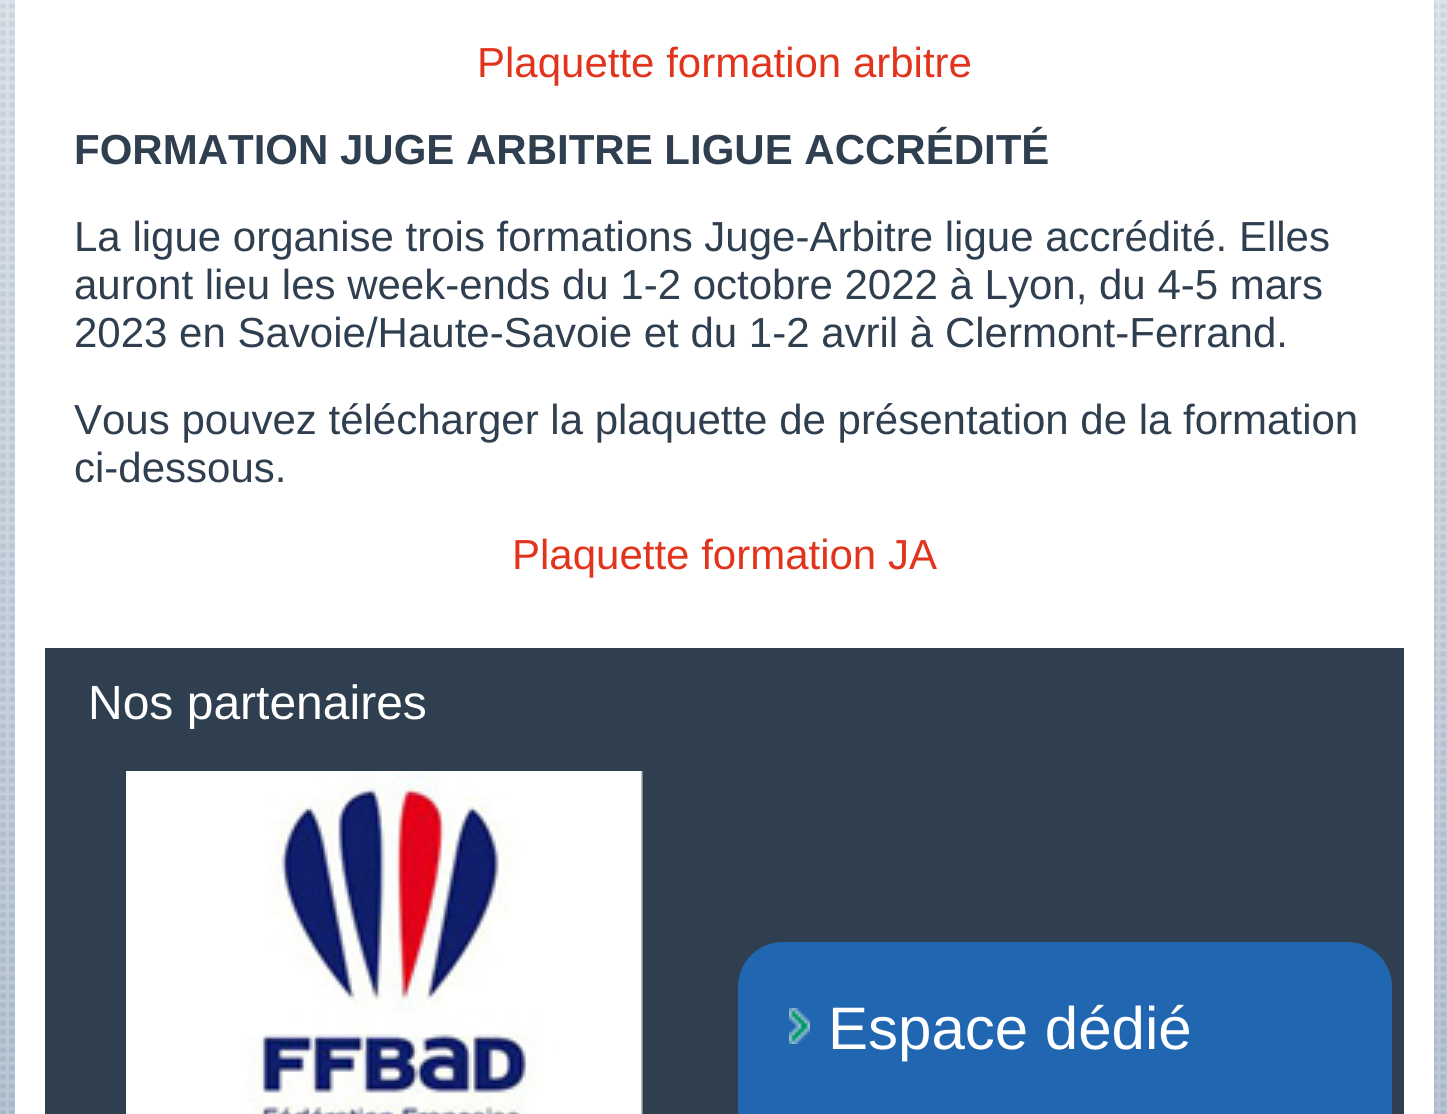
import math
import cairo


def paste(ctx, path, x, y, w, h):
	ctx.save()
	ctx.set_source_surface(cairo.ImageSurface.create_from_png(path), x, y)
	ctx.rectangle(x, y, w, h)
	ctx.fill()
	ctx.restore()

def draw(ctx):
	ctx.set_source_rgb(1, 1, 1)
	ctx.paint()
	paste(ctx, 'media/1.png', 0, 0, 1447, 1114)
	ctx.set_source_rgb(1, 1, 1)
	ctx.rectangle(15, 0, 1419, 1114)
	ctx.fill()
	ctx.select_font_face('Liberation Sans')
	ctx.set_font_size(42)
	ctx.set_source_rgb(0.886, 0.204, 0.114)
	ctx.move_to(477, 77)
	ctx.show_text('Plaquette formation arbitre')
	ctx.select_font_face('Liberation Sans', cairo.FONT_SLANT_NORMAL, cairo.FONT_WEIGHT_BOLD)
	ctx.set_source_rgb(0.188, 0.247, 0.314)
	ctx.move_to(74, 164)
	ctx.show_text('FORMATION JUGE ARBITRE LIGUE ACCRÉDITÉ')
	ctx.select_font_face('Liberation Sans')
	for x, y, s in [
		(74, 251, 'La ligue organise trois formations Juge-Arbitre ligue accrédité. Elles'),
		(74, 299, 'auront lieu les week-ends du 1-2 octobre 2022 à Lyon, du 4-5 mars'),
		(74, 347, '2023 en Savoie/Haute-Savoie et du 1-2 avril à Clermont-Ferrand.'),
		(74, 434, 'Vous pouvez télécharger la plaquette de présentation de la formation'),
		(74, 482, 'ci-dessous.'),
	]:
		ctx.move_to(x, y)
		ctx.show_text(s)
	ctx.set_source_rgb(0.886, 0.204, 0.114)
	ctx.move_to(512, 569)
	ctx.show_text('Plaquette formation JA')
	ctx.set_source_rgb(0.188, 0.247, 0.314)
	ctx.rectangle(45, 648, 1359, 466)
	ctx.fill()
	ctx.set_font_size(48)
	ctx.set_source_rgb(1, 1, 1)
	ctx.move_to(88, 719)
	ctx.show_text('Nos partenaires')
	paste(ctx, 'media/2.png', 126, 771, 517, 343)
	ctx.set_source_rgb(0.125, 0.4, 0.694)
	ctx.new_path()
	ctx.move_to(783, 942)
	ctx.line_to(1347, 942)
	ctx.curve_to(1372, 942, 1392, 962, 1392, 987)
	ctx.line_to(1392, 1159)
	ctx.line_to(738, 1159)
	ctx.line_to(738, 987)
	ctx.curve_to(738, 962, 758, 942, 783, 942)
	ctx.close_path()
	ctx.fill()
	paste(ctx, 'media/3.png', 789, 1008, 21, 36)
	ctx.set_font_size(60)
	ctx.set_source_rgb(1, 1, 1)
	ctx.move_to(828, 1049)
	ctx.show_text('Espace dédié')


surface = cairo.ImageSurface(cairo.FORMAT_RGB24, 1447, 1114)
ctx = cairo.Context(surface)
options = cairo.FontOptions()
options.set_hint_metrics(cairo.HINT_METRICS_OFF)
options.set_hint_style(cairo.HINT_STYLE_NONE)
ctx.set_font_options(options)
ctx.set_miter_limit(4)
draw(ctx)
surface.write_to_png('image.png')
